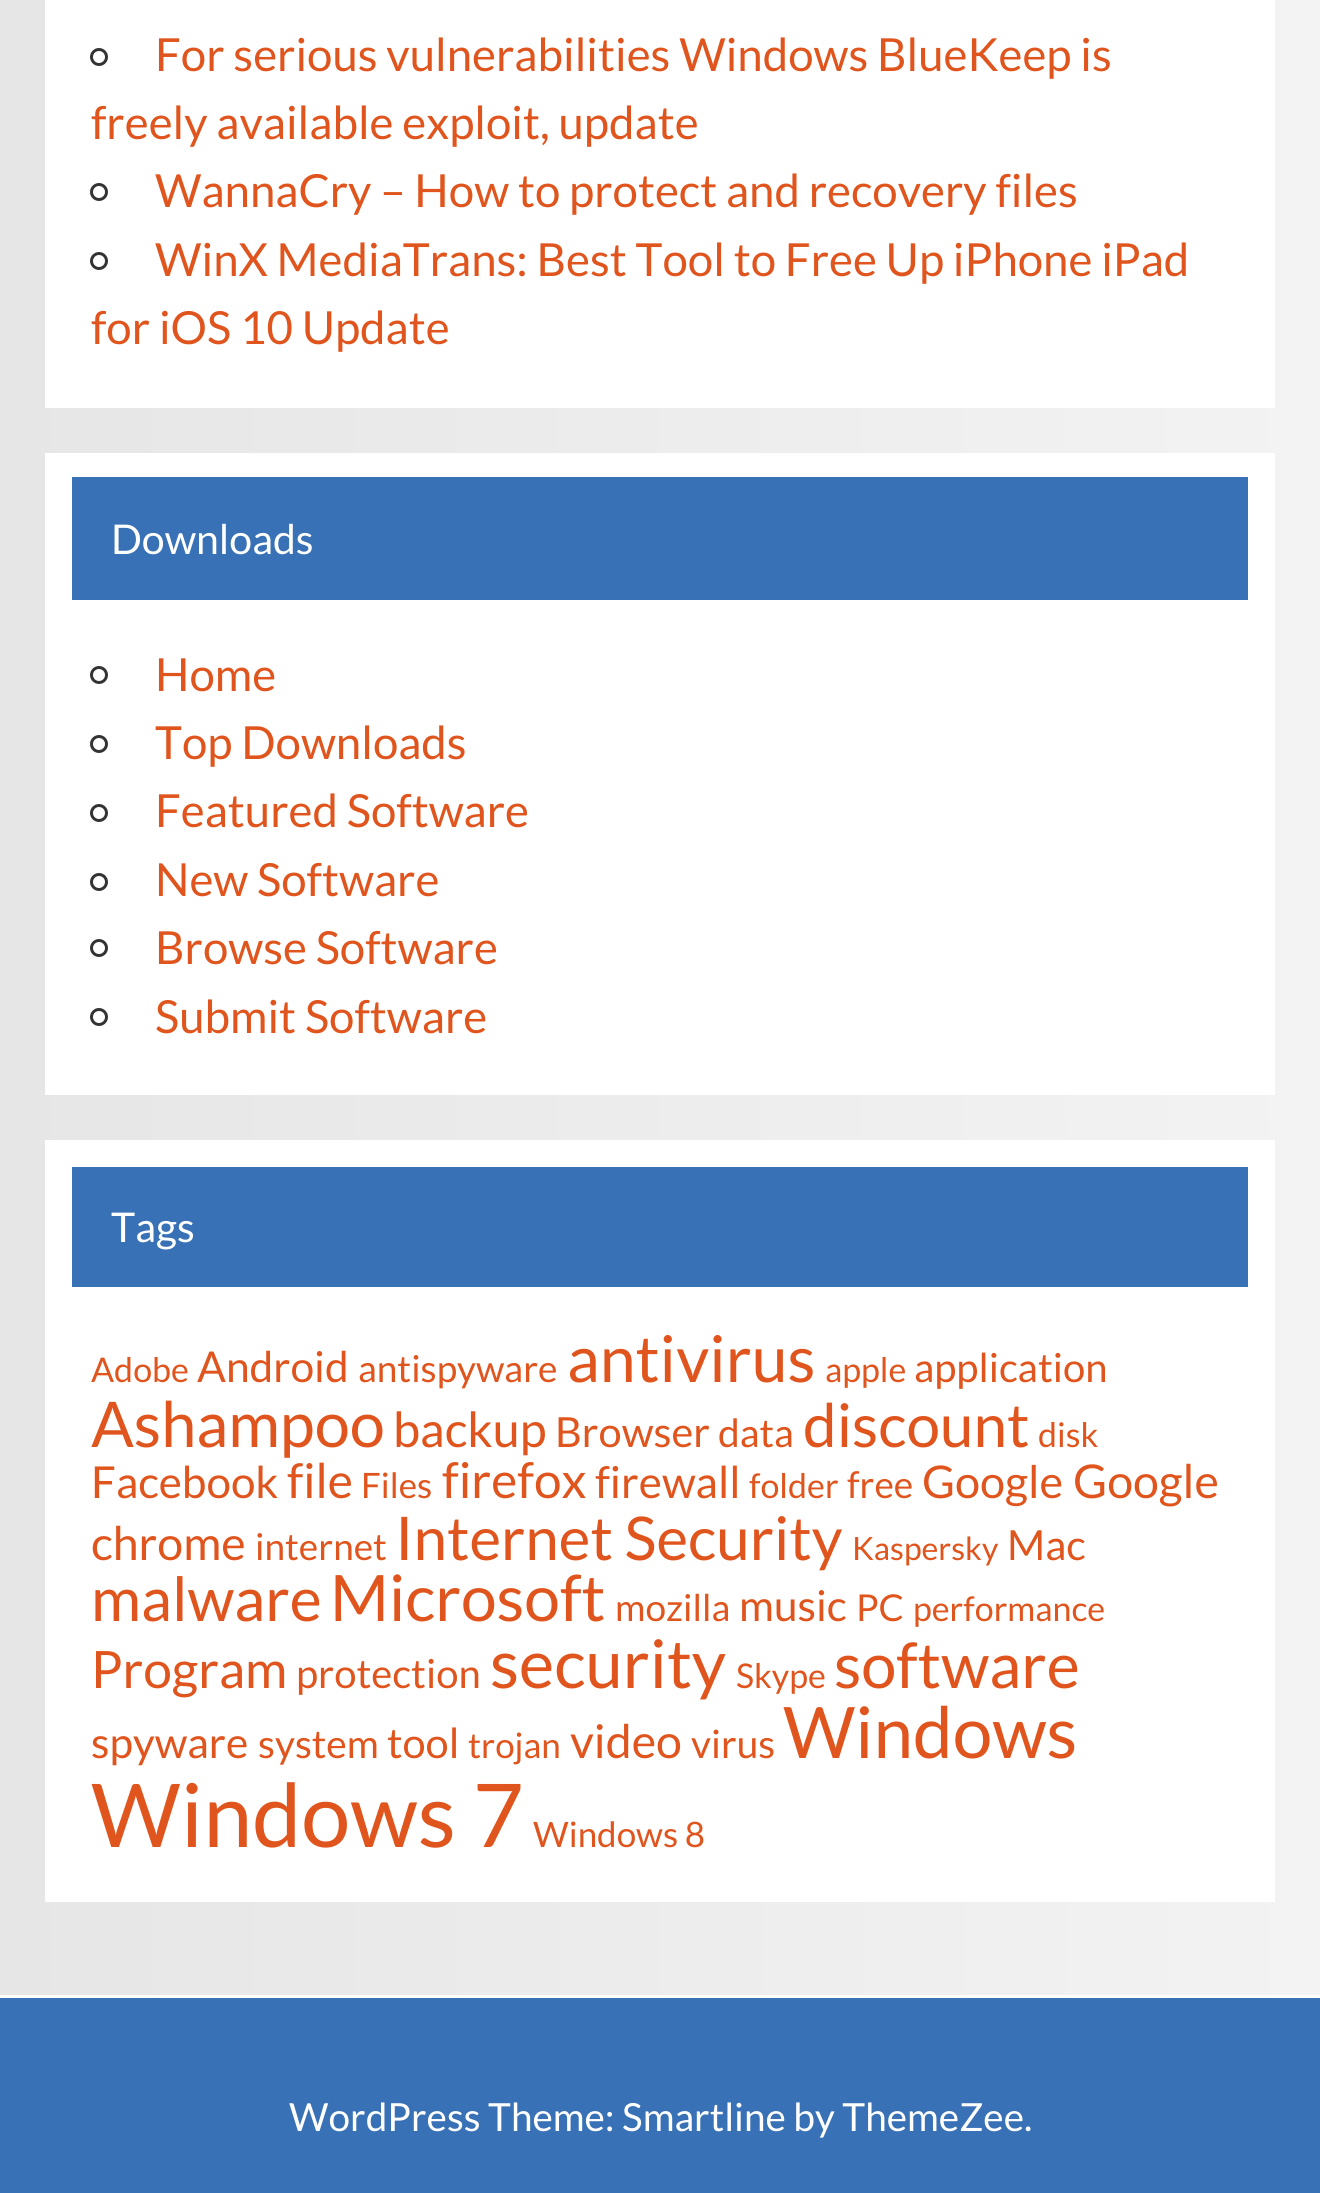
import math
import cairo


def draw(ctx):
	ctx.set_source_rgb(1, 1, 1)
	ctx.paint()
	gradient = cairo.LinearGradient(0, 11, 1320, 10)
	gradient.add_color_stop_rgba(0, 0.902, 0.902, 0.902, 1)
	gradient.add_color_stop_rgba(1, 0.953, 0.953, 0.953, 1)
	ctx.set_source(gradient)
	ctx.rectangle(0, 0, 1320, 1995)
	ctx.fill()
	ctx.set_source_rgb(1, 1, 1)
	ctx.rectangle(45, 0, 1230, 408)
	ctx.fill()
	ctx.arc(99, 57, 7.5, 0, 2 * math.pi)
	ctx.set_source_rgb(0.2, 0.2, 0.2)
	ctx.set_line_width(3)
	ctx.stroke()
	ctx.select_font_face('Lato')
	ctx.set_font_size(45.6)
	ctx.set_source_rgb(0.878, 0.333, 0.114)
	ctx.move_to(155, 71)
	ctx.show_text('For serious vulnerabilities Windows BlueKeep is')
	ctx.move_to(91, 139)
	ctx.show_text('freely available exploit, update')
	ctx.new_path()
	ctx.arc(99, 192, 7.5, 0, 2 * math.pi)
	ctx.set_source_rgb(0.2, 0.2, 0.2)
	ctx.stroke()
	ctx.set_source_rgb(0.878, 0.333, 0.114)
	ctx.move_to(155, 207)
	ctx.show_text('WannaCry – How to protect and recovery files')
	ctx.new_path()
	ctx.arc(99, 261, 7.5, 0, 2 * math.pi)
	ctx.set_source_rgb(0.2, 0.2, 0.2)
	ctx.stroke()
	ctx.set_source_rgb(0.878, 0.333, 0.114)
	ctx.move_to(155, 276)
	ctx.show_text('WinX MediaTrans: Best Tool to Free Up iPhone iPad')
	ctx.move_to(91, 344)
	ctx.show_text('for iOS 10 Update')
	ctx.set_source_rgb(1, 1, 1)
	ctx.rectangle(45, 453, 1230, 642)
	ctx.fill()
	ctx.set_source_rgb(0.22, 0.443, 0.71)
	ctx.rectangle(72, 477, 1176, 123)
	ctx.fill()
	ctx.set_font_size(41)
	ctx.set_source_rgb(1, 1, 1)
	ctx.move_to(111, 554)
	ctx.show_text('Downloads')
	ctx.new_path()
	ctx.arc(99, 675, 7.5, 0, 2 * math.pi)
	ctx.set_source_rgb(0.2, 0.2, 0.2)
	ctx.stroke()
	ctx.set_font_size(45.6)
	ctx.set_source_rgb(0.878, 0.333, 0.114)
	ctx.move_to(155, 691)
	ctx.show_text('Home')
	ctx.new_path()
	ctx.arc(99, 744, 7.5, 0, 2 * math.pi)
	ctx.set_source_rgb(0.2, 0.2, 0.2)
	ctx.stroke()
	ctx.set_source_rgb(0.878, 0.333, 0.114)
	ctx.move_to(155, 759)
	ctx.show_text('Top Downloads')
	ctx.new_path()
	ctx.arc(99, 813, 7.5, 0, 2 * math.pi)
	ctx.set_source_rgb(0.2, 0.2, 0.2)
	ctx.stroke()
	ctx.set_source_rgb(0.878, 0.333, 0.114)
	ctx.move_to(155, 827)
	ctx.show_text('Featured Software')
	ctx.new_path()
	ctx.arc(99, 882, 7.5, 0, 2 * math.pi)
	ctx.set_source_rgb(0.2, 0.2, 0.2)
	ctx.stroke()
	ctx.set_source_rgb(0.878, 0.333, 0.114)
	ctx.move_to(155, 896)
	ctx.show_text('New Software')
	ctx.new_path()
	ctx.arc(99, 948, 7.5, 0, 2 * math.pi)
	ctx.set_source_rgb(0.2, 0.2, 0.2)
	ctx.stroke()
	ctx.set_source_rgb(0.878, 0.333, 0.114)
	ctx.move_to(155, 964)
	ctx.show_text('Browse Software')
	ctx.new_path()
	ctx.arc(99, 1017, 7.5, 0, 2 * math.pi)
	ctx.set_source_rgb(0.2, 0.2, 0.2)
	ctx.stroke()
	ctx.set_source_rgb(0.878, 0.333, 0.114)
	ctx.move_to(155, 1033)
	ctx.show_text('Submit Software')
	ctx.set_source_rgb(1, 1, 1)
	ctx.rectangle(45, 1140, 1230, 762)
	ctx.fill()
	ctx.set_source_rgb(0.22, 0.443, 0.71)
	ctx.rectangle(72, 1167, 1176, 120)
	ctx.fill()
	ctx.set_font_size(41)
	ctx.set_source_rgb(1, 1, 1)
	ctx.move_to(111, 1242)
	ctx.show_text('Tags')
	ctx.set_font_size(34)
	ctx.set_source_rgb(0.878, 0.333, 0.114)
	ctx.move_to(91, 1382)
	ctx.show_text('Adobe')
	ctx.set_font_size(42.5)
	ctx.move_to(197, 1382)
	ctx.show_text('Android')
	ctx.set_font_size(37)
	ctx.move_to(358, 1382)
	ctx.show_text('antispyware')
	ctx.set_font_size(64.5)
	ctx.move_to(567, 1382)
	ctx.show_text('antivirus')
	ctx.set_font_size(34)
	ctx.move_to(825, 1382)
	ctx.show_text('apple')
	ctx.set_font_size(40)
	ctx.move_to(914, 1382)
	ctx.show_text('application')
	ctx.set_font_size(63)
	ctx.move_to(91, 1447)
	ctx.show_text('Ashampoo')
	ctx.set_font_size(48.5)
	ctx.move_to(393, 1447)
	ctx.show_text('backup')
	ctx.set_font_size(41.5)
	ctx.move_to(555, 1447)
	ctx.show_text('Browser')
	ctx.set_font_size(39)
	ctx.move_to(718, 1447)
	ctx.show_text('data')
	ctx.set_font_size(60.25)
	ctx.move_to(803, 1447)
	ctx.show_text('discount')
	ctx.set_font_size(34)
	ctx.move_to(1038, 1447)
	ctx.show_text('disk')
	ctx.set_font_size(44)
	ctx.move_to(91, 1498)
	ctx.show_text('Facebook')
	ctx.set_font_size(48)
	ctx.move_to(287, 1498)
	ctx.show_text('file')
	ctx.set_font_size(35)
	ctx.move_to(361, 1498)
	ctx.show_text('Files')
	ctx.set_font_size(49.5)
	ctx.move_to(442, 1498)
	ctx.show_text('firefox')
	ctx.set_font_size(44)
	ctx.move_to(595, 1498)
	ctx.show_text('firewall')
	ctx.set_font_size(34)
	ctx.move_to(749, 1498)
	ctx.show_text('folder')
	ctx.set_font_size(37)
	ctx.move_to(847, 1498)
	ctx.show_text('free')
	ctx.set_font_size(45)
	ctx.move_to(922, 1498)
	ctx.show_text('Google')
	ctx.set_font_size(46.5)
	ctx.move_to(1073, 1498)
	ctx.show_text('Google')
	ctx.move_to(91, 1560)
	ctx.show_text('chrome')
	ctx.set_font_size(37)
	ctx.move_to(255, 1560)
	ctx.show_text('internet')
	ctx.set_font_size(60.25)
	ctx.move_to(395, 1560)
	ctx.show_text('Internet Security')
	ctx.set_font_size(32)
	ctx.move_to(852, 1560)
	ctx.show_text('Kaspersky')
	ctx.set_font_size(41.5)
	ctx.move_to(1007, 1560)
	ctx.show_text('Mac')
	ctx.set_font_size(61)
	ctx.move_to(91, 1621)
	ctx.show_text('malware')
	ctx.set_font_size(64)
	ctx.move_to(330, 1621)
	ctx.show_text('Microsoft')
	ctx.set_font_size(37)
	ctx.move_to(615, 1621)
	ctx.show_text('mozilla')
	ctx.set_font_size(42.5)
	ctx.move_to(739, 1621)
	ctx.show_text('music')
	ctx.set_font_size(37)
	ctx.move_to(856, 1621)
	ctx.show_text('PC')
	ctx.set_font_size(34)
	ctx.move_to(913, 1621)
	ctx.show_text('performance')
	ctx.set_font_size(51.5)
	ctx.move_to(91, 1688)
	ctx.show_text('Program')
	ctx.set_font_size(40)
	ctx.move_to(296, 1688)
	ctx.show_text('protection')
	ctx.set_font_size(67)
	ctx.move_to(490, 1688)
	ctx.show_text('security')
	ctx.set_font_size(34)
	ctx.move_to(736, 1688)
	ctx.show_text('Skype')
	ctx.set_font_size(63)
	ctx.move_to(834, 1688)
	ctx.show_text('software')
	ctx.set_font_size(42.5)
	ctx.move_to(91, 1758)
	ctx.show_text('spyware')
	ctx.set_font_size(39)
	ctx.move_to(258, 1758)
	ctx.show_text('system')
	ctx.set_font_size(41.5)
	ctx.move_to(387, 1758)
	ctx.show_text('tool')
	ctx.set_font_size(35)
	ctx.move_to(468, 1758)
	ctx.show_text('trojan')
	ctx.set_font_size(46.5)
	ctx.move_to(570, 1758)
	ctx.show_text('video')
	ctx.set_font_size(39)
	ctx.move_to(691, 1758)
	ctx.show_text('virus')
	ctx.set_font_size(71)
	ctx.move_to(783, 1758)
	ctx.show_text('Windows')
	ctx.set_font_size(88)
	ctx.move_to(91, 1847)
	ctx.show_text('Windows 7')
	ctx.set_font_size(35)
	ctx.move_to(533, 1847)
	ctx.show_text('Windows 8')
	ctx.set_source_rgb(0.22, 0.443, 0.71)
	ctx.rectangle(0, 1998, 1320, 195)
	ctx.fill()
	ctx.set_font_size(38.75)
	ctx.set_source_rgb(1, 1, 1)
	ctx.move_to(289, 2131)
	ctx.show_text('WordPress Theme: Smartline by ThemeZee.')


surface = cairo.ImageSurface(cairo.FORMAT_RGB24, 1320, 2193)
ctx = cairo.Context(surface)
options = cairo.FontOptions()
options.set_hint_metrics(cairo.HINT_METRICS_OFF)
options.set_hint_style(cairo.HINT_STYLE_NONE)
ctx.set_font_options(options)
ctx.set_miter_limit(4)
draw(ctx)
surface.write_to_png('image.png')
